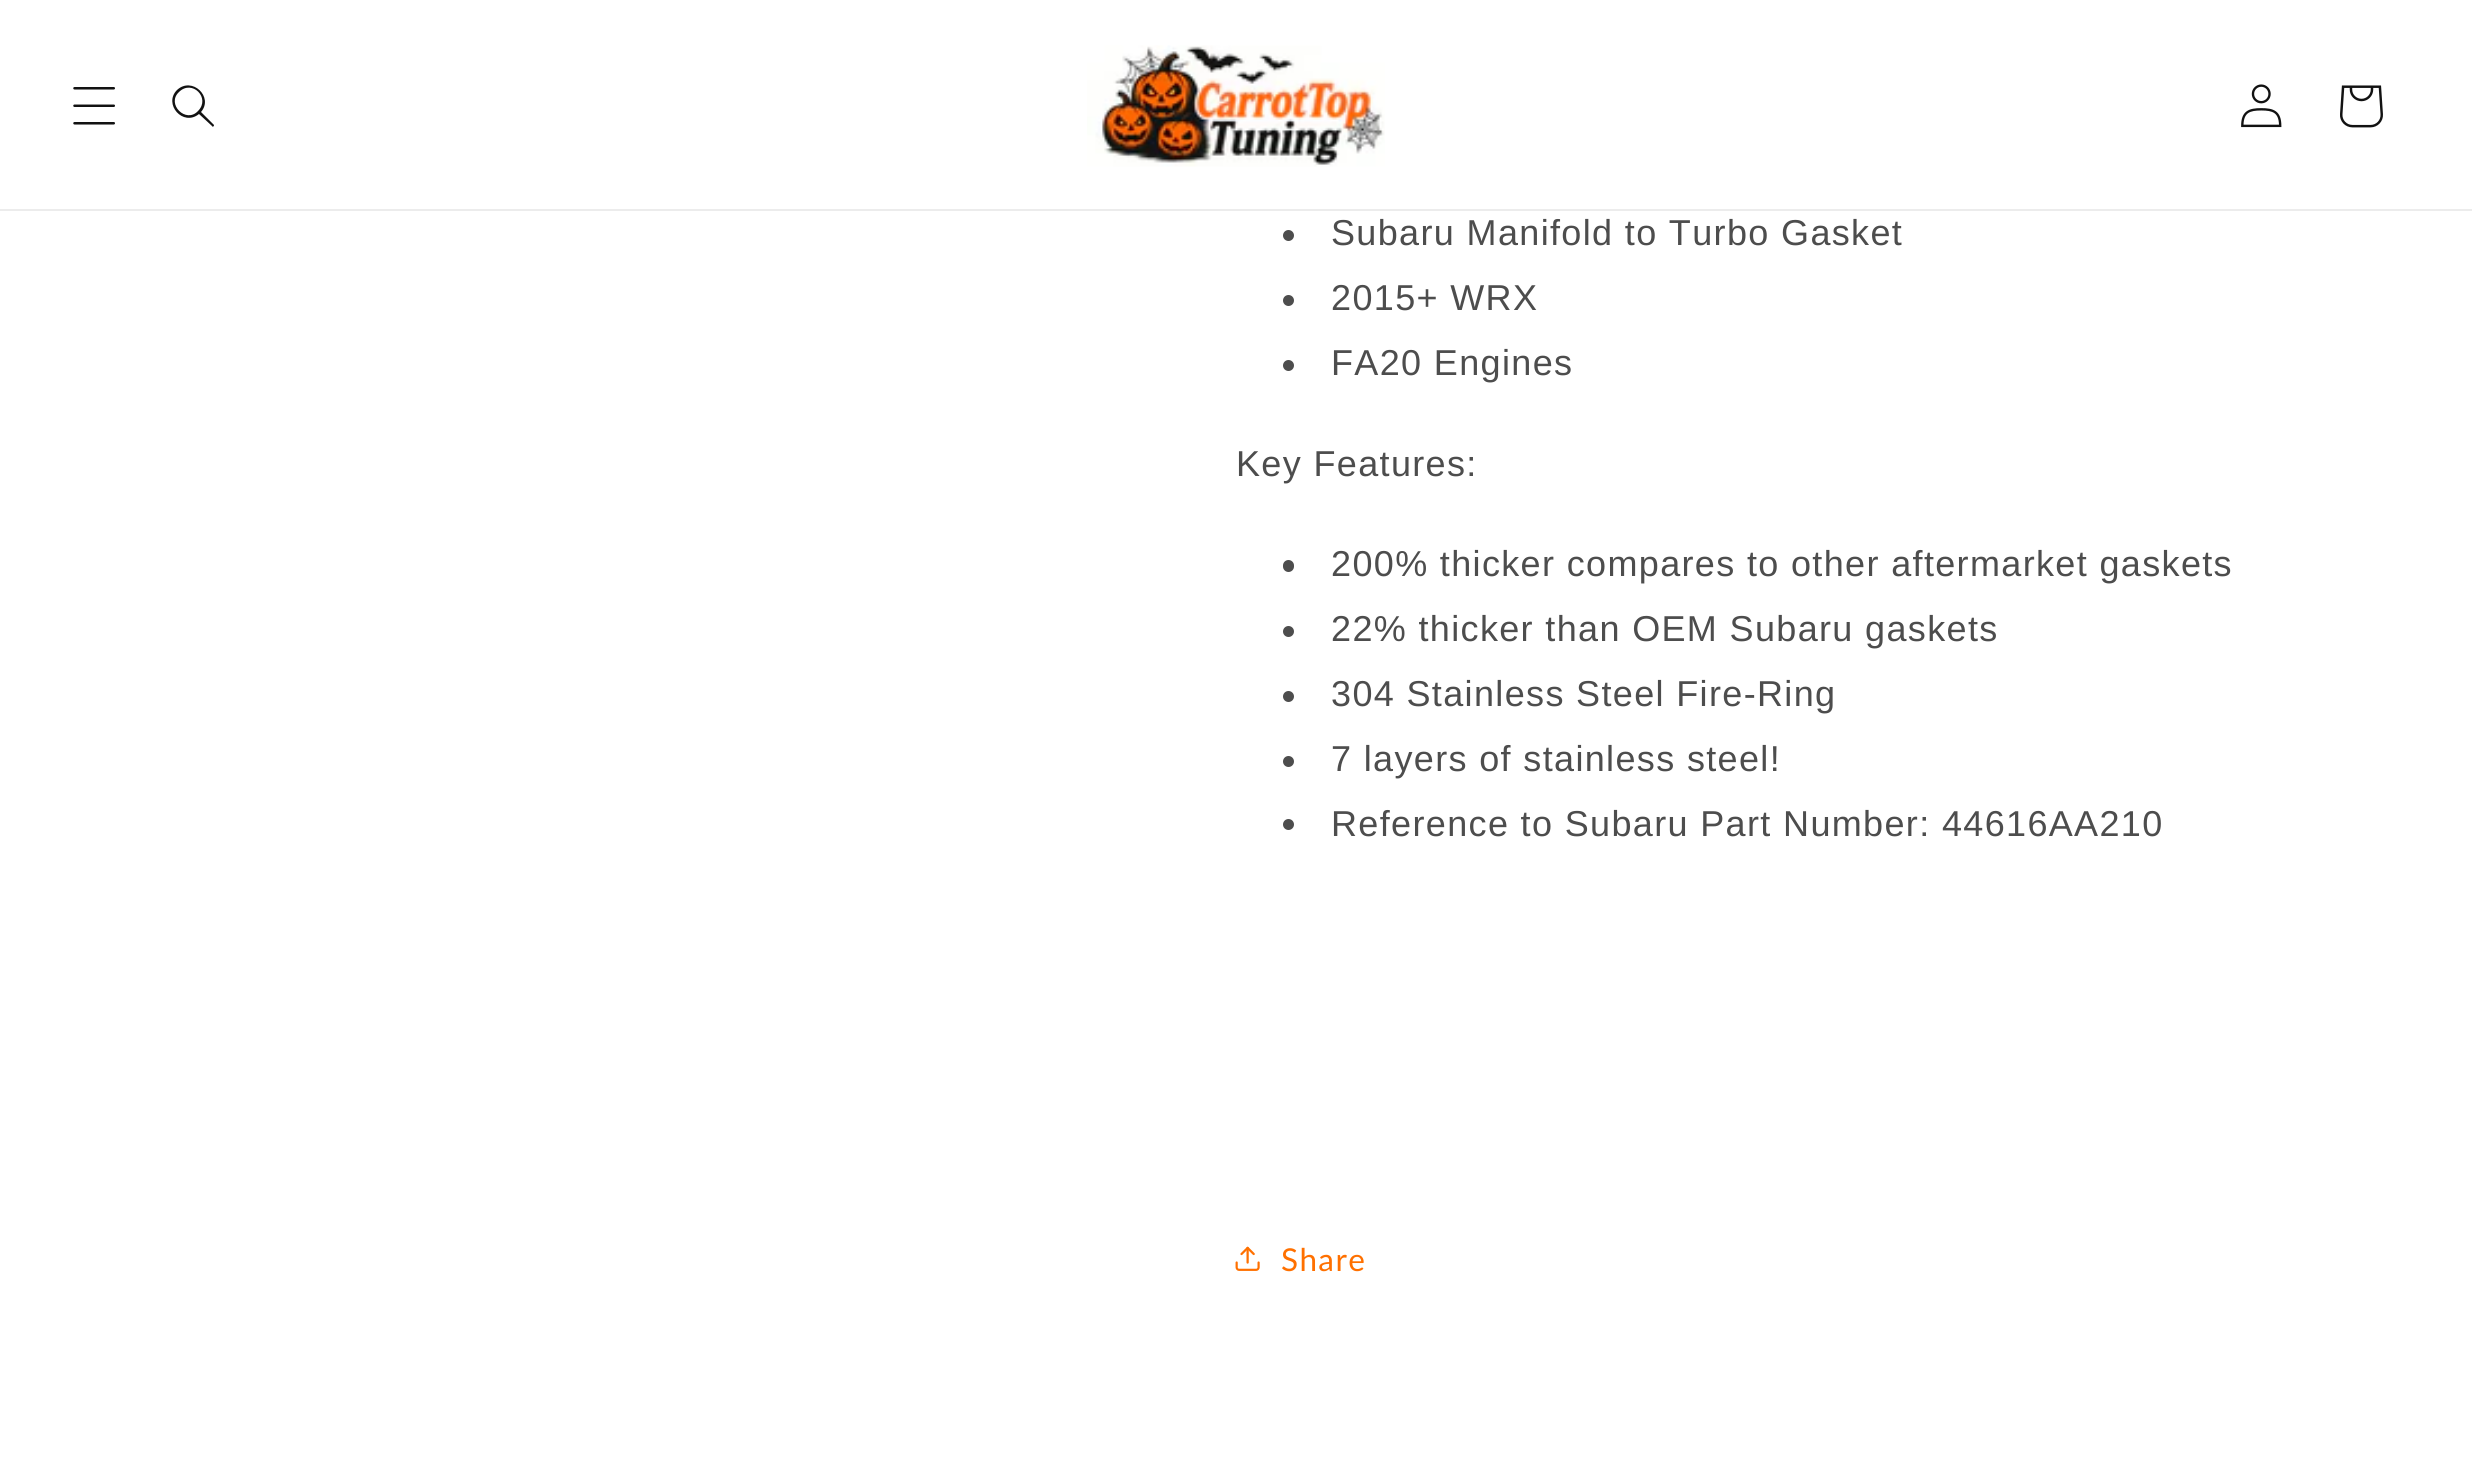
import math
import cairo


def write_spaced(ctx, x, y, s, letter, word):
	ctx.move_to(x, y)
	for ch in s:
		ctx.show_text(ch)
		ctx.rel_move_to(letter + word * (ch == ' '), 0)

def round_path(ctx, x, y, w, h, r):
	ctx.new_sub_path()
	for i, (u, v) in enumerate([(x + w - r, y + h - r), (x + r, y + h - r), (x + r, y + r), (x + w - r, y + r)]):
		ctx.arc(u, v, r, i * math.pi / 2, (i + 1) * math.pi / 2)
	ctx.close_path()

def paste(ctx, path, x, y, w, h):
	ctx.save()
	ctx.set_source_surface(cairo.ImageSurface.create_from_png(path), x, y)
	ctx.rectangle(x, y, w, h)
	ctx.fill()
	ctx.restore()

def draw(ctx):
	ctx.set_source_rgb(1, 1, 1)
	ctx.paint()
	ctx.set_source_rgb(0.925, 0.925, 0.925)
	ctx.rectangle(0, 209, 2472, 2)
	ctx.fill()
	paste(ctx, 'media/1.png', 73, 87, 42, 38)
	ctx.set_source_rgb(0.071, 0.071, 0.071)
	ctx.set_fill_rule(cairo.FILL_RULE_EVEN_ODD)
	ctx.new_path()
	ctx.move_to(198, 111)
	ctx.curve_to(186, 124, 166, 104, 179, 92)
	ctx.curve_to(192, 79, 211, 98, 198, 111)
	ctx.move_to(199, 114)
	ctx.curve_to(183, 127, 163, 104, 177, 90)
	ctx.curve_to(192, 76, 214, 97, 201, 112)
	ctx.line_to(214, 125)
	ctx.curve_to(214, 127, 212, 127, 212, 126)
	ctx.close_path()
	ctx.fill()
	paste(ctx, 'media/2.png', 1087, 45, 298, 122)
	paste(ctx, 'media/3.png', 2241, 84, 41, 44)
	paste(ctx, 'media/4.png', 2340, 85, 43, 43)
	ctx.set_source_rgb(0.302, 0.302, 0.302)
	ctx.arc(1288.5, 235.5, 5.5, 0, 2 * math.pi)
	ctx.fill()
	ctx.select_font_face('Liberation Sans')
	ctx.set_font_size(36)
	write_spaced(ctx, 1331, 245, 'Subaru Manifold to Turbo Gasket', 1.35, 0)
	ctx.new_path()
	ctx.arc(1288.5, 300.5, 5.5, 0, 2 * math.pi)
	ctx.fill()
	write_spaced(ctx, 1331, 310, '2015+ WRX', 1.35, 0)
	ctx.new_path()
	ctx.arc(1288.5, 365.5, 5.5, 0, 2 * math.pi)
	ctx.fill()
	write_spaced(ctx, 1331, 375, 'FA20 Engines', 1.35, 0)
	write_spaced(ctx, 1236, 476, 'Key Features:', 1.35, 0)
	round_path(ctx, 1283, 560, 11, 12, 5.5)
	ctx.fill()
	write_spaced(ctx, 1331, 576, '200% thicker compares to other aftermarket gaskets', 1.35, 0)
	ctx.new_path()
	ctx.arc(1288.5, 631.5, 5.5, 0, 2 * math.pi)
	ctx.fill()
	write_spaced(ctx, 1331, 641, '22% thicker than OEM Subaru gaskets', 1.35, 0)
	ctx.new_path()
	ctx.arc(1288.5, 696.5, 5.5, 0, 2 * math.pi)
	ctx.fill()
	write_spaced(ctx, 1331, 706, '304 Stainless Steel Fire-Ring', 1.35, 0)
	ctx.new_path()
	ctx.arc(1288.5, 761.5, 5.5, 0, 2 * math.pi)
	ctx.fill()
	write_spaced(ctx, 1331, 771, '7 layers of stainless steel!', 1.35, 0)
	ctx.new_path()
	ctx.arc(1288.5, 824.5, 5.5, 0, 2 * math.pi)
	ctx.fill()
	write_spaced(ctx, 1331, 836, 'Reference to Subaru Part Number: 44616AA210', 1.35, 0)
	paste(ctx, 'media/5.png', 1235, 1246, 25, 25)
	ctx.select_font_face('Lato')
	ctx.set_font_size(31.5)
	ctx.set_source_rgb(1, 0.439, 0)
	write_spaced(ctx, 1281, 1271, 'Share', 1.35, 0)


surface = cairo.ImageSurface(cairo.FORMAT_RGB24, 2472, 1470)
ctx = cairo.Context(surface)
options = cairo.FontOptions()
options.set_hint_metrics(cairo.HINT_METRICS_OFF)
options.set_hint_style(cairo.HINT_STYLE_NONE)
ctx.set_font_options(options)
ctx.set_miter_limit(4)
draw(ctx)
surface.write_to_png('image.png')
